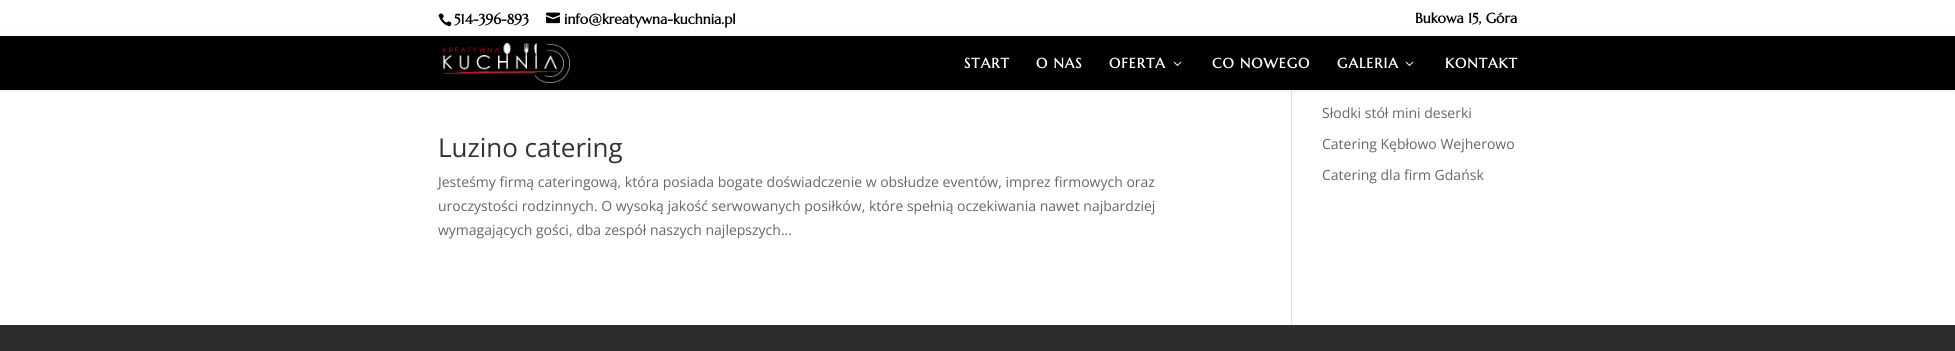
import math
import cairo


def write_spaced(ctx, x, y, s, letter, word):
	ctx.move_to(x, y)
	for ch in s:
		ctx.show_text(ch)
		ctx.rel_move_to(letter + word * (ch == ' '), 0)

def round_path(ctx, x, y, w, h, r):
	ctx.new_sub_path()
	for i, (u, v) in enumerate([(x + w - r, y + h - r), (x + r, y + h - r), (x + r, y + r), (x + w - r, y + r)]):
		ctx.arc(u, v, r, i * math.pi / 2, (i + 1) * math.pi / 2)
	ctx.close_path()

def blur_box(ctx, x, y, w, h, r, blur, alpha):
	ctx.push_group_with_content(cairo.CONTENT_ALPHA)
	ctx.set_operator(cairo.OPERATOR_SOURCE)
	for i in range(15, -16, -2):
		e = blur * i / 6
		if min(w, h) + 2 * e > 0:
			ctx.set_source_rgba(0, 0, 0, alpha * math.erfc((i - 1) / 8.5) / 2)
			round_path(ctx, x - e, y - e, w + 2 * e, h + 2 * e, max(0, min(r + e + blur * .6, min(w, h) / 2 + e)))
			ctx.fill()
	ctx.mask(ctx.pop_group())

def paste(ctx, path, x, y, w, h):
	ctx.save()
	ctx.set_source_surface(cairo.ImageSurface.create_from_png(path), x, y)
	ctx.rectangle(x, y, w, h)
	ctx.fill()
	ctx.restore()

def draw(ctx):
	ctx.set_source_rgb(1, 1, 1)
	ctx.paint()
	ctx.set_source_rgb(0.886, 0.886, 0.886)
	ctx.rectangle(1291, 90, 1, 235)
	ctx.fill()
	ctx.set_source_rgb(0, 0, 0)
	blur_box(ctx, 0, 36, 1955, 54, 0, 3.5, 0.1)
	ctx.set_source_rgb(1, 1, 1)
	ctx.rectangle(0, 32, 1955, 4)
	ctx.fill()
	paste(ctx, 'media/1.png', 438, 13, 14, 14)
	ctx.select_font_face('Marcellus', cairo.FONT_SLANT_NORMAL, cairo.FONT_WEIGHT_BOLD)
	ctx.set_font_size(14)
	ctx.set_source_rgb(0, 0, 0)
	ctx.move_to(454, 24)
	ctx.show_text('514-396-893')
	paste(ctx, 'media/2.png', 546, 12, 14, 12)
	ctx.move_to(564, 24)
	ctx.show_text('info@kreatywna-kuchnia.pl')
	ctx.move_to(1415, 23)
	ctx.show_text('Bukowa 15, Góra')
	ctx.rectangle(0, 36, 1955, 54)
	ctx.fill()
	paste(ctx, 'media/3.png', 442, 43, 128, 40)
	ctx.set_source_rgb(1, 1, 1)
	for x, y, s in [
		(964, 68, 'START'),
		(1036, 68, 'O NAS'),
		(1109, 68, 'OFERTA'),
	]:
		write_spaced(ctx, x, y, s, 1, 0)
	paste(ctx, 'media/4.png', 1173, 61, 9, 5)
	write_spaced(ctx, 1212, 68, 'CO NOWEGO', 1, 0)
	write_spaced(ctx, 1337, 68, 'GALERIA', 1, 0)
	paste(ctx, 'media/4.png', 1405, 61, 9, 5)
	write_spaced(ctx, 1445, 68, 'KONTAKT', 1, 0)
	ctx.select_font_face('Open Sans')
	ctx.set_font_size(26)
	ctx.set_source_rgb(0.2, 0.2, 0.2)
	ctx.move_to(438, 157)
	ctx.show_text('Luzino catering')
	ctx.set_font_size(14)
	ctx.set_source_rgb(0.4, 0.4, 0.4)
	for x, y, s in [
		(438, 187, 'Jesteśmy firmą cateringową, która posiada bogate doświadczenie w obsłudze eventów, imprez firmowych oraz'),
		(438, 211, 'uroczystości rodzinnych. O wysoką jakość serwowanych posiłków, które spełnią oczekiwania nawet najbardziej'),
		(438, 235, 'wymagających gości, dba zespół naszych najlepszych...'),
		(1322, 118, 'Słodki stół mini deserki'),
		(1322, 149, 'Catering Kębłowo Wejherowo'),
		(1322, 180, 'Catering dla firm Gdańsk'),
	]:
		ctx.move_to(x, y)
		ctx.show_text(s)
	ctx.set_source_rgb(0.176, 0.176, 0.176)
	ctx.rectangle(0, 325, 1955, 26)
	ctx.fill()


surface = cairo.ImageSurface(cairo.FORMAT_RGB24, 1955, 351)
ctx = cairo.Context(surface)
options = cairo.FontOptions()
options.set_hint_metrics(cairo.HINT_METRICS_OFF)
options.set_hint_style(cairo.HINT_STYLE_NONE)
ctx.set_font_options(options)
ctx.set_miter_limit(4)
draw(ctx)
surface.write_to_png('image.png')
